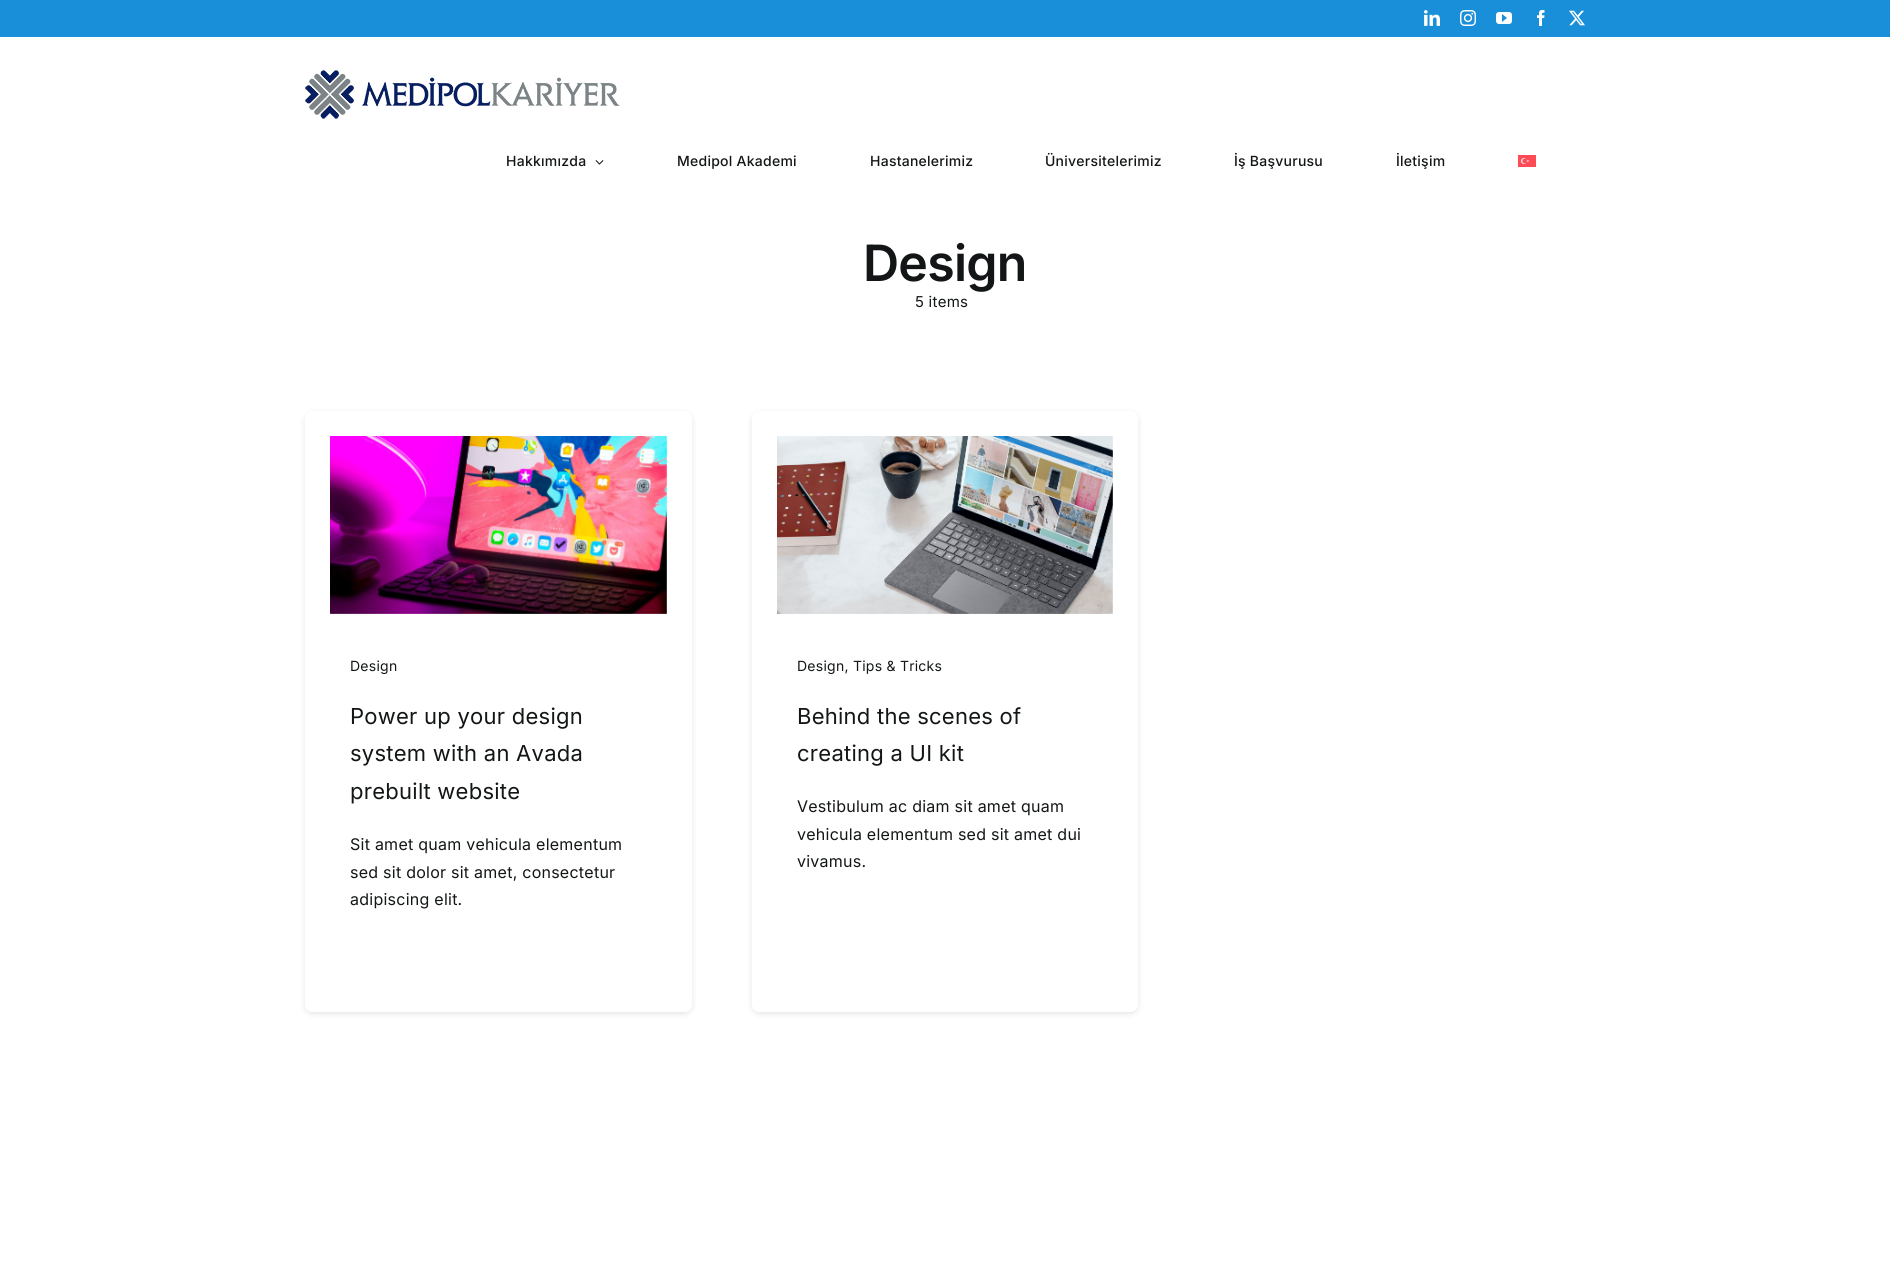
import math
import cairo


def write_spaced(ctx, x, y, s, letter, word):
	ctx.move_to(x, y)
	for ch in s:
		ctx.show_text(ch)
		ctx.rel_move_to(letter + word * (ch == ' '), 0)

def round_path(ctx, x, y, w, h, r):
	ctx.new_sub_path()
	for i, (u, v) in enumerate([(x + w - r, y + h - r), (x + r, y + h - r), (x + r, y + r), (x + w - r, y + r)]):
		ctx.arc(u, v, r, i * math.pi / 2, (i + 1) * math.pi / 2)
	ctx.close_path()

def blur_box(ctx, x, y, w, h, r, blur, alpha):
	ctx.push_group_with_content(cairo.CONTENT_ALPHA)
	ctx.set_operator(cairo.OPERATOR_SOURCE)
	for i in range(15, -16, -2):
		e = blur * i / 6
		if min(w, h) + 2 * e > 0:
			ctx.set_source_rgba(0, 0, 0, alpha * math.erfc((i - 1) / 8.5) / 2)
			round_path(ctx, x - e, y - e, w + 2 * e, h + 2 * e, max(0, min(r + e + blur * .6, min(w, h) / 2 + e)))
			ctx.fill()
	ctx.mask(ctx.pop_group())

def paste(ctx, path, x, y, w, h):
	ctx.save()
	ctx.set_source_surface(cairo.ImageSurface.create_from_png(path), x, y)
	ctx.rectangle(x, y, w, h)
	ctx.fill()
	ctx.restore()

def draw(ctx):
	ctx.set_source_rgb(1, 1, 1)
	ctx.paint()
	ctx.set_source_rgb(0.098, 0.561, 0.851)
	ctx.rectangle(0, 0, 1890, 37)
	ctx.fill()
	paste(ctx, 'media/1.png', 1424, 10, 16, 16)
	paste(ctx, 'media/2.png', 1460, 10, 16, 16)
	paste(ctx, 'media/3.png', 1496, 12, 16, 12)
	paste(ctx, 'media/4.png', 1537, 10, 8, 16)
	paste(ctx, 'media/5.png', 1569, 10, 16, 16)
	paste(ctx, 'media/6.png', 305, 70, 315, 49)
	ctx.select_font_face('Inter Medium')
	ctx.set_font_size(14)
	ctx.set_source_rgb(0.078, 0.086, 0.09)
	write_spaced(ctx, 506, 166, 'Hakkımızda', 0.25, 0)
	paste(ctx, 'media/7.png', 595, 160, 9, 5)
	for x, y, s in [
		(677, 166, 'Medipol Akademi'),
		(870, 166, 'Hastanelerimiz'),
		(1045, 166, 'Üniversitelerimiz'),
		(1234, 166, 'İş Başvurusu'),
		(1396, 166, 'İletişim'),
	]:
		write_spaced(ctx, x, y, s, 0.25, 0)
	paste(ctx, 'media/8.png', 1518, 155, 18, 12)
	ctx.select_font_face('Inter SemiBold')
	ctx.set_font_size(50)
	write_spaced(ctx, 863, 281, 'Design', -0.75, 0)
	ctx.select_font_face('Inter')
	ctx.set_font_size(15)
	write_spaced(ctx, 915, 307, '5 items', 0.25, 0)
	ctx.save()
	ctx.set_fill_rule(cairo.FILL_RULE_EVEN_ODD)
	ctx.new_path()
	ctx.move_to(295, 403)
	ctx.line_to(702, 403)
	ctx.line_to(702, 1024)
	ctx.line_to(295, 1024)
	ctx.close_path()
	ctx.move_to(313, 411)
	ctx.line_to(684, 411)
	ctx.curve_to(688.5, 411, 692, 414.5, 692, 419)
	ctx.line_to(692, 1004)
	ctx.curve_to(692, 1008.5, 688.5, 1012, 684, 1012)
	ctx.line_to(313, 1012)
	ctx.curve_to(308.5, 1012, 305, 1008.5, 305, 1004)
	ctx.line_to(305, 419)
	ctx.curve_to(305, 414.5, 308.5, 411, 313, 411)
	ctx.close_path()
	ctx.clip()
	ctx.set_source_rgb(0.075, 0.082, 0.086)
	blur_box(ctx, 305, 413, 387, 601, 8, 3, 0.11)
	ctx.restore()
	paste(ctx, 'media/9.png', 330, 436, 337, 178)
	ctx.set_font_size(14)
	write_spaced(ctx, 350, 671, 'Design', 0.25, 0)
	ctx.set_font_size(22)
	for x, y, s in [
		(350, 724, 'Power up your design'),
		(350, 761, 'system with an Avada'),
		(350, 799, 'prebuilt website'),
	]:
		write_spaced(ctx, x, y, s, 0.25, 0)
	ctx.set_font_size(16)
	for x, y, s in [
		(350, 850, 'Sit amet quam vehicula elementum'),
		(350, 878, 'sed sit dolor sit amet, consectetur'),
		(350, 905, 'adipiscing elit.'),
	]:
		write_spaced(ctx, x, y, s, 0.25, 0)
	ctx.save()
	ctx.set_fill_rule(cairo.FILL_RULE_EVEN_ODD)
	ctx.new_path()
	ctx.move_to(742, 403)
	ctx.line_to(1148, 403)
	ctx.line_to(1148, 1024)
	ctx.line_to(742, 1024)
	ctx.close_path()
	ctx.move_to(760, 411)
	ctx.line_to(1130, 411)
	ctx.curve_to(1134.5, 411, 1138, 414.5, 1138, 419)
	ctx.line_to(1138, 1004)
	ctx.curve_to(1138, 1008.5, 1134.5, 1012, 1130, 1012)
	ctx.line_to(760, 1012)
	ctx.curve_to(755.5, 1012, 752, 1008.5, 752, 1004)
	ctx.line_to(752, 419)
	ctx.curve_to(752, 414.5, 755.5, 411, 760, 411)
	ctx.close_path()
	ctx.clip()
	ctx.set_source_rgb(0.075, 0.082, 0.086)
	blur_box(ctx, 752, 413, 386, 601, 8, 3, 0.11)
	ctx.restore()
	paste(ctx, 'media/10.png', 777, 436, 336, 178)
	ctx.set_font_size(14)
	write_spaced(ctx, 797, 671, 'Design, Tips & Tricks', 0.25, 0)
	ctx.set_font_size(22)
	write_spaced(ctx, 797, 724, 'Behind the scenes of', 0.25, 0)
	write_spaced(ctx, 797, 761, 'creating a UI kit', 0.25, 0)
	ctx.set_font_size(16)
	for x, y, s in [
		(797, 812, 'Vestibulum ac diam sit amet quam'),
		(797, 840, 'vehicula elementum sed sit amet dui'),
		(797, 867, 'vivamus.'),
	]:
		write_spaced(ctx, x, y, s, 0.25, 0)


surface = cairo.ImageSurface(cairo.FORMAT_RGB24, 1890, 1279)
ctx = cairo.Context(surface)
options = cairo.FontOptions()
options.set_hint_metrics(cairo.HINT_METRICS_OFF)
options.set_hint_style(cairo.HINT_STYLE_NONE)
ctx.set_font_options(options)
ctx.set_miter_limit(4)
draw(ctx)
surface.write_to_png('image.png')
